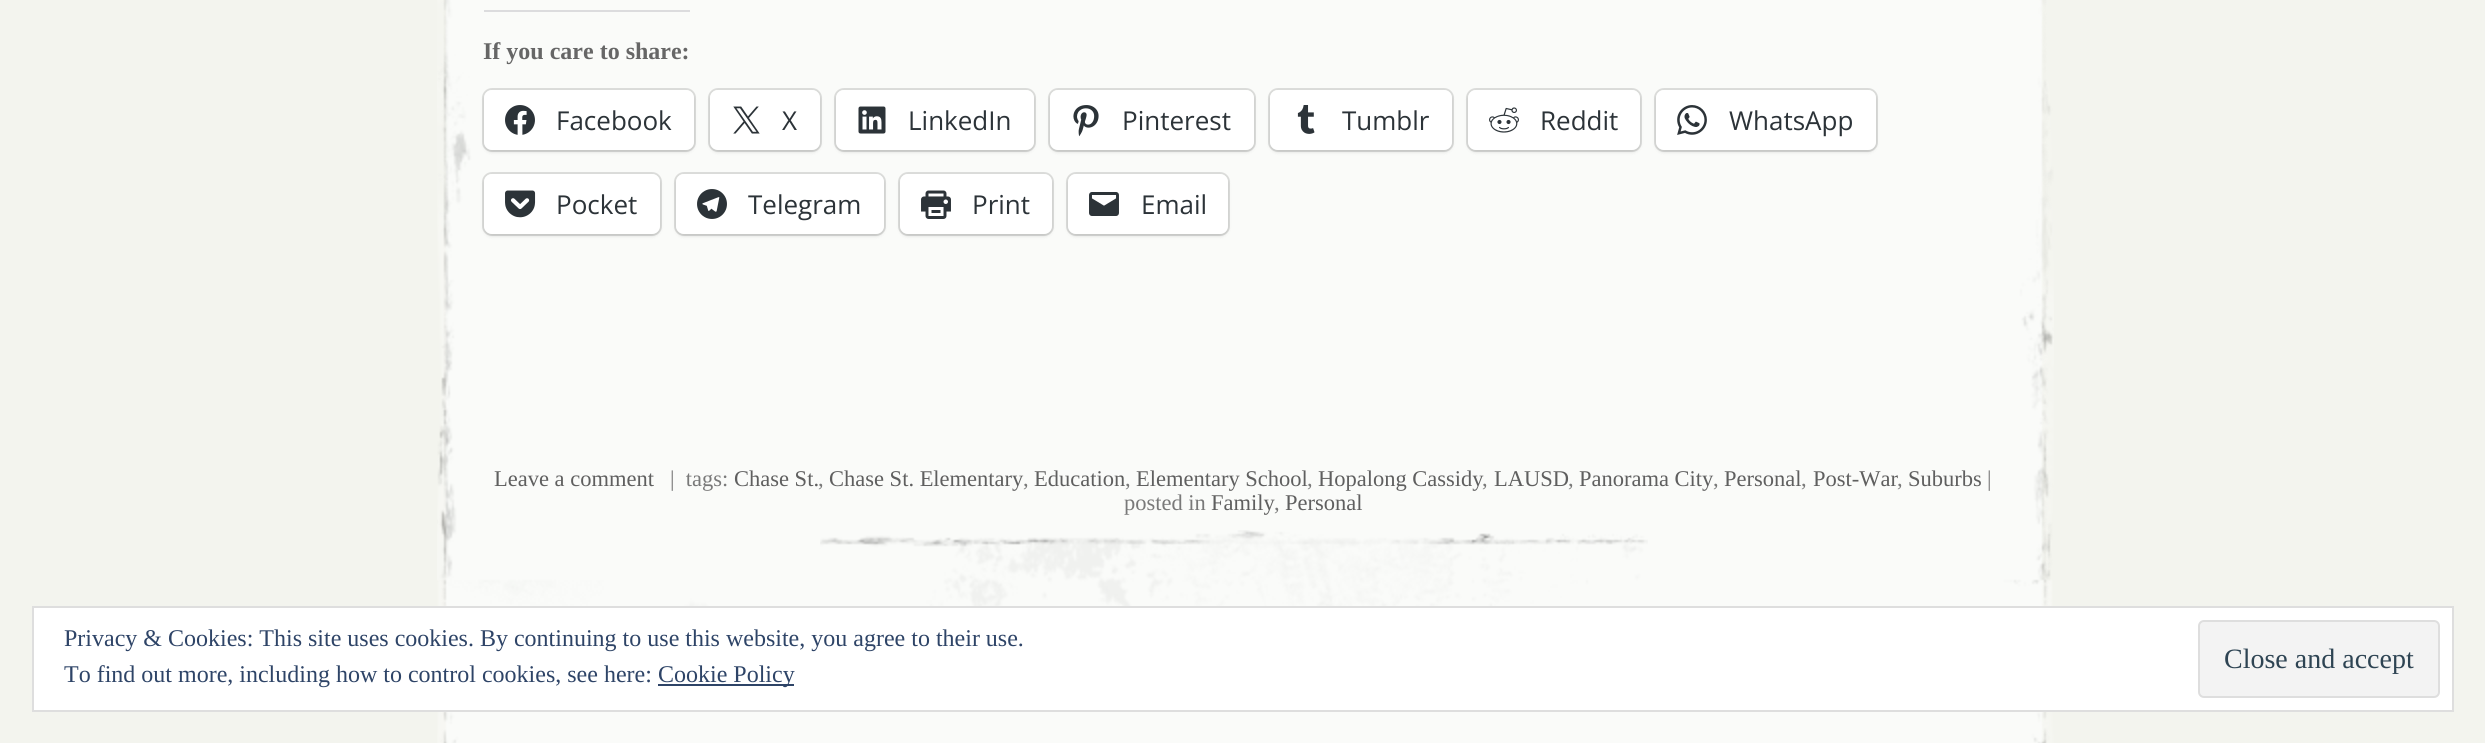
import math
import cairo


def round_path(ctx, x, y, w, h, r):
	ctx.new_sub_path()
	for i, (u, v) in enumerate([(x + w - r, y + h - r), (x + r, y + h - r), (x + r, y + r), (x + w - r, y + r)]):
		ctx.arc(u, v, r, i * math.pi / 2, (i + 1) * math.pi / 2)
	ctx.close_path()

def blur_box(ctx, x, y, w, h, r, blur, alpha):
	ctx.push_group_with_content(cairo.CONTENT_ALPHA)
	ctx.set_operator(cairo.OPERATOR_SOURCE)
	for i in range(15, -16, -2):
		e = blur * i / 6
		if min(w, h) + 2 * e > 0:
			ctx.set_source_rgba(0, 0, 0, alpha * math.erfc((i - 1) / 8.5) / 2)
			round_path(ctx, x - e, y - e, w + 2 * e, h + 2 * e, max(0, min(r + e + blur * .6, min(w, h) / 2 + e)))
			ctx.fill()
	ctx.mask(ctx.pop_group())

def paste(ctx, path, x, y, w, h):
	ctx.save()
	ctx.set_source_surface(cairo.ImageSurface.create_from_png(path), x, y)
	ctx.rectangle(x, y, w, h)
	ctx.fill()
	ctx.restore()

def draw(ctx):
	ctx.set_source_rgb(0.953, 0.957, 0.933)
	ctx.paint()
	paste(ctx, 'media/1.png', 437, 0, 1617, 743)
	ctx.set_source_rgb(0.863, 0.863, 0.871)
	ctx.rectangle(484, 10, 206, 2)
	ctx.fill()
	ctx.select_font_face('Liberation Serif', cairo.FONT_SLANT_NORMAL, cairo.FONT_WEIGHT_BOLD)
	ctx.set_font_size(24)
	ctx.set_source_rgb(0.4, 0.4, 0.4)
	ctx.move_to(483, 59)
	ctx.show_text('If you care to share:')
	round_path(ctx, 483, 89, 212, 62, 9)
	ctx.set_source_rgb(0.863, 0.867, 0.859)
	ctx.stroke()
	ctx.set_source_rgb(0, 0, 0)
	blur_box(ctx, 484, 92, 210, 60, 8, 2, 0.12)
	ctx.set_source_rgb(1, 1, 1)
	round_path(ctx, 484, 90, 210, 60, 8)
	ctx.fill()
	paste(ctx, 'media/2.png', 505, 105, 30, 30)
	ctx.select_font_face('Open Sans')
	ctx.set_font_size(26)
	ctx.set_source_rgb(0.173, 0.2, 0.22)
	ctx.move_to(556, 130)
	ctx.show_text('Facebook')
	round_path(ctx, 709, 89, 112, 62, 9)
	ctx.set_source_rgb(0.863, 0.867, 0.859)
	ctx.stroke()
	ctx.set_source_rgb(0, 0, 0)
	blur_box(ctx, 710, 92, 110, 60, 8, 2, 0.12)
	ctx.set_source_rgb(1, 1, 1)
	round_path(ctx, 710, 90, 110, 60, 8)
	ctx.fill()
	paste(ctx, 'media/3.png', 733, 106, 27, 28)
	ctx.set_source_rgb(0.173, 0.2, 0.22)
	ctx.move_to(782, 130)
	ctx.show_text('X')
	round_path(ctx, 835, 89, 200, 62, 9)
	ctx.set_source_rgb(0.863, 0.867, 0.859)
	ctx.stroke()
	ctx.set_source_rgb(0, 0, 0)
	blur_box(ctx, 836, 92, 198, 60, 8, 2, 0.12)
	ctx.set_source_rgb(1, 1, 1)
	round_path(ctx, 836, 90, 198, 60, 8)
	ctx.fill()
	paste(ctx, 'media/4.png', 858, 106, 28, 28)
	ctx.set_source_rgb(0.173, 0.2, 0.22)
	ctx.move_to(908, 130)
	ctx.show_text('LinkedIn')
	round_path(ctx, 1049, 89, 206, 62, 9)
	ctx.set_source_rgb(0.863, 0.867, 0.859)
	ctx.stroke()
	ctx.set_source_rgb(0, 0, 0)
	blur_box(ctx, 1050, 92, 204, 60, 8, 2, 0.12)
	ctx.set_source_rgb(1, 1, 1)
	round_path(ctx, 1050, 90, 204, 60, 8)
	ctx.fill()
	paste(ctx, 'media/5.png', 1073, 105, 26, 32)
	ctx.set_source_rgb(0.173, 0.2, 0.22)
	ctx.move_to(1122, 130)
	ctx.show_text('Pinterest')
	round_path(ctx, 1269, 89, 184, 62, 9)
	ctx.set_source_rgb(0.863, 0.867, 0.859)
	ctx.stroke()
	ctx.set_source_rgb(0, 0, 0)
	blur_box(ctx, 1270, 92, 182, 60, 8, 2, 0.12)
	ctx.set_source_rgb(1, 1, 1)
	round_path(ctx, 1270, 90, 182, 60, 8)
	ctx.fill()
	paste(ctx, 'media/6.png', 1297, 105, 18, 29)
	ctx.set_source_rgb(0.173, 0.2, 0.22)
	ctx.move_to(1342, 130)
	ctx.show_text('Tumblr')
	round_path(ctx, 1467, 89, 174, 62, 9)
	ctx.set_source_rgb(0.863, 0.867, 0.859)
	ctx.stroke()
	ctx.set_source_rgb(0, 0, 0)
	blur_box(ctx, 1468, 92, 172, 60, 8, 2, 0.12)
	ctx.set_source_rgb(1, 1, 1)
	round_path(ctx, 1468, 90, 172, 60, 8)
	ctx.fill()
	paste(ctx, 'media/7.png', 1489, 107, 30, 26)
	ctx.set_source_rgb(0.173, 0.2, 0.22)
	ctx.move_to(1540, 130)
	ctx.show_text('Reddit')
	round_path(ctx, 1655, 89, 222, 62, 9)
	ctx.set_source_rgb(0.863, 0.867, 0.859)
	ctx.stroke()
	ctx.set_source_rgb(0, 0, 0)
	blur_box(ctx, 1656, 92, 220, 60, 8, 2, 0.12)
	ctx.set_source_rgb(1, 1, 1)
	round_path(ctx, 1656, 90, 220, 60, 8)
	ctx.fill()
	paste(ctx, 'media/8.png', 1677, 105, 30, 30)
	ctx.set_source_rgb(0.173, 0.2, 0.22)
	ctx.move_to(1729, 130)
	ctx.show_text('WhatsApp')
	round_path(ctx, 483, 173, 178, 62, 9)
	ctx.set_source_rgb(0.863, 0.867, 0.859)
	ctx.stroke()
	ctx.set_source_rgb(0, 0, 0)
	blur_box(ctx, 484, 176, 176, 60, 8, 2, 0.12)
	ctx.set_source_rgb(1, 1, 1)
	round_path(ctx, 484, 174, 176, 60, 8)
	ctx.fill()
	paste(ctx, 'media/9.png', 505, 190, 31, 28)
	ctx.set_source_rgb(0.173, 0.2, 0.22)
	ctx.move_to(556, 214)
	ctx.show_text('Pocket')
	round_path(ctx, 675, 173, 210, 62, 9)
	ctx.set_source_rgb(0.863, 0.867, 0.859)
	ctx.stroke()
	ctx.set_source_rgb(0, 0, 0)
	blur_box(ctx, 676, 176, 208, 60, 8, 2, 0.12)
	ctx.set_source_rgb(1, 1, 1)
	round_path(ctx, 676, 174, 208, 60, 8)
	ctx.fill()
	paste(ctx, 'media/10.png', 697, 189, 30, 30)
	ctx.set_source_rgb(0.173, 0.2, 0.22)
	ctx.move_to(748, 214)
	ctx.show_text('Telegram')
	round_path(ctx, 899, 173, 154, 62, 9)
	ctx.set_source_rgb(0.863, 0.867, 0.859)
	ctx.stroke()
	ctx.set_source_rgb(0, 0, 0)
	blur_box(ctx, 900, 176, 152, 60, 8, 2, 0.12)
	ctx.set_source_rgb(1, 1, 1)
	round_path(ctx, 900, 174, 152, 60, 8)
	ctx.fill()
	paste(ctx, 'media/11.png', 921, 190, 30, 29)
	ctx.set_source_rgb(0.173, 0.2, 0.22)
	ctx.move_to(972, 214)
	ctx.show_text('Print')
	round_path(ctx, 1067, 173, 162, 62, 9)
	ctx.set_source_rgb(0.863, 0.867, 0.859)
	ctx.stroke()
	ctx.set_source_rgb(0, 0, 0)
	blur_box(ctx, 1068, 176, 160, 60, 8, 2, 0.12)
	ctx.set_source_rgb(1, 1, 1)
	round_path(ctx, 1068, 174, 160, 60, 8)
	ctx.fill()
	paste(ctx, 'media/12.png', 1089, 192, 30, 24)
	ctx.set_source_rgb(0.173, 0.2, 0.22)
	ctx.move_to(1141, 214)
	ctx.show_text('Email')
	ctx.select_font_face('Liberation Serif')
	ctx.set_font_size(22.5)
	ctx.set_source_rgb(0.373, 0.373, 0.373)
	ctx.move_to(494, 486)
	ctx.show_text('Leave a comment')
	ctx.set_source_rgb(0.475, 0.475, 0.475)
	ctx.move_to(670, 486)
	ctx.show_text('|  tags:')
	ctx.set_source_rgb(0.373, 0.373, 0.373)
	ctx.move_to(734, 486)
	ctx.show_text('Chase St.')
	ctx.set_source_rgb(0.475, 0.475, 0.475)
	ctx.move_to(818, 486)
	ctx.show_text(',')
	ctx.set_source_rgb(0.373, 0.373, 0.373)
	ctx.move_to(829, 486)
	ctx.show_text('Chase St. Elementary')
	ctx.set_source_rgb(0.475, 0.475, 0.475)
	ctx.move_to(1023, 486)
	ctx.show_text(',')
	ctx.set_source_rgb(0.373, 0.373, 0.373)
	ctx.move_to(1034, 486)
	ctx.show_text('Education')
	ctx.set_source_rgb(0.475, 0.475, 0.475)
	ctx.move_to(1125, 486)
	ctx.show_text(',')
	ctx.set_source_rgb(0.373, 0.373, 0.373)
	ctx.move_to(1136, 486)
	ctx.show_text('Elementary School')
	ctx.set_source_rgb(0.475, 0.475, 0.475)
	ctx.move_to(1307, 486)
	ctx.show_text(',')
	ctx.set_source_rgb(0.373, 0.373, 0.373)
	ctx.move_to(1318, 486)
	ctx.show_text('Hopalong Cassidy')
	ctx.set_source_rgb(0.475, 0.475, 0.475)
	ctx.move_to(1482, 486)
	ctx.show_text(',')
	ctx.set_source_rgb(0.373, 0.373, 0.373)
	ctx.move_to(1494, 486)
	ctx.show_text('LAUSD')
	ctx.set_source_rgb(0.475, 0.475, 0.475)
	ctx.move_to(1568, 486)
	ctx.show_text(',')
	ctx.set_source_rgb(0.373, 0.373, 0.373)
	ctx.move_to(1579, 486)
	ctx.show_text('Panorama City')
	ctx.set_source_rgb(0.475, 0.475, 0.475)
	ctx.move_to(1713, 486)
	ctx.show_text(',')
	ctx.set_source_rgb(0.373, 0.373, 0.373)
	ctx.move_to(1724, 486)
	ctx.show_text('Personal')
	ctx.set_source_rgb(0.475, 0.475, 0.475)
	ctx.move_to(1801, 486)
	ctx.show_text(',')
	ctx.set_source_rgb(0.373, 0.373, 0.373)
	ctx.move_to(1813, 486)
	ctx.show_text('Post-War')
	ctx.set_source_rgb(0.475, 0.475, 0.475)
	ctx.move_to(1897, 486)
	ctx.show_text(',')
	ctx.set_source_rgb(0.373, 0.373, 0.373)
	ctx.move_to(1908, 486)
	ctx.show_text('Suburbs')
	ctx.set_source_rgb(0.475, 0.475, 0.475)
	ctx.move_to(1987, 486)
	ctx.show_text('|')
	ctx.move_to(1124, 510)
	ctx.show_text('posted in')
	ctx.set_source_rgb(0.373, 0.373, 0.373)
	ctx.move_to(1211, 510)
	ctx.show_text('Family')
	ctx.set_source_rgb(0.475, 0.475, 0.475)
	ctx.move_to(1274, 510)
	ctx.show_text(',')
	ctx.set_source_rgb(0.373, 0.373, 0.373)
	ctx.move_to(1285, 510)
	ctx.show_text('Personal')
	paste(ctx, 'media/13.png', 820, 530, 828, 76)
	ctx.set_source_rgb(1, 1, 1)
	ctx.rectangle(33, 607, 2420, 104)
	ctx.fill_preserve()
	ctx.set_source_rgb(0.871, 0.871, 0.871)
	ctx.stroke()
	ctx.set_font_size(24)
	ctx.set_source_rgb(0.18, 0.267, 0.404)
	ctx.move_to(64, 646)
	ctx.show_text('Privacy & Cookies: This site uses cookies. By continuing to use this website, you agree to their use.')
	ctx.set_source_rgb(0.953, 0.953, 0.953)
	round_path(ctx, 2199, 621, 240, 76, 5)
	ctx.fill_preserve()
	ctx.set_source_rgb(0.871, 0.871, 0.871)
	ctx.stroke()
	ctx.set_font_size(28)
	ctx.set_source_rgb(0.18, 0.267, 0.325)
	ctx.move_to(2224, 668)
	ctx.show_text('Close and accept')
	ctx.set_font_size(24)
	ctx.set_source_rgb(0.18, 0.267, 0.404)
	ctx.move_to(64, 682)
	ctx.show_text('To find out more, including how to control cookies, see here:')
	ctx.rectangle(658, 684, 136, 2)
	ctx.fill()
	ctx.move_to(658, 682)
	ctx.show_text('Cookie Policy')


surface = cairo.ImageSurface(cairo.FORMAT_RGB24, 2485, 743)
ctx = cairo.Context(surface)
options = cairo.FontOptions()
options.set_hint_metrics(cairo.HINT_METRICS_OFF)
options.set_hint_style(cairo.HINT_STYLE_NONE)
ctx.set_font_options(options)
ctx.set_miter_limit(4)
draw(ctx)
surface.write_to_png('image.png')
